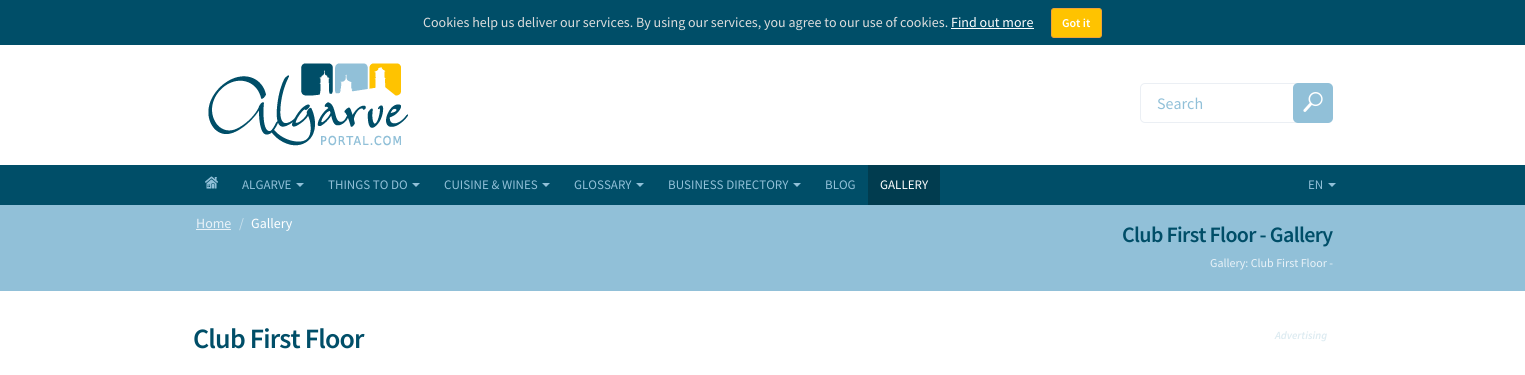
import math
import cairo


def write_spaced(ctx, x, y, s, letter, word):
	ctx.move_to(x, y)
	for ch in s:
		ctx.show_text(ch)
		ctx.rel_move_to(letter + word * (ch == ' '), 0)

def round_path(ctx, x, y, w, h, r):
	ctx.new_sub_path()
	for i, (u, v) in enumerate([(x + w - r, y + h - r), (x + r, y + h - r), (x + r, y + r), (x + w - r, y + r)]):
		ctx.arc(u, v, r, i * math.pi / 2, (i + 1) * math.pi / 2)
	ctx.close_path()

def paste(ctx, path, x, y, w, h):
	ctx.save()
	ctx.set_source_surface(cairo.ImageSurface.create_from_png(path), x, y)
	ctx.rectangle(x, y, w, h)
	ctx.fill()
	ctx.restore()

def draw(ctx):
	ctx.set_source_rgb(1, 1, 1)
	ctx.paint()
	ctx.set_source_rgb(0, 0.306, 0.408)
	ctx.rectangle(0, 0, 1525, 45)
	ctx.fill()
	ctx.select_font_face('Source Sans Pro')
	ctx.set_font_size(14)
	ctx.set_source_rgb(0.867, 0.867, 0.867)
	ctx.move_to(423, 27)
	ctx.show_text('Cookies help us deliver our services. By using our services, you agree to our use of cookies.')
	ctx.set_source_rgb(1, 1, 1)
	ctx.move_to(951, 27)
	ctx.show_text('Find out more')
	ctx.rectangle(951, 28, 83, 1)
	ctx.fill()
	ctx.set_source_rgb(1, 0.765, 0)
	round_path(ctx, 1051.5, 8.5, 50, 29, 2.5)
	ctx.fill_preserve()
	ctx.set_source_rgb(0.933, 0.635, 0.212)
	ctx.set_line_width(1)
	ctx.stroke()
	ctx.select_font_face('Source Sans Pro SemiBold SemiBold')
	ctx.set_font_size(12)
	ctx.set_source_rgb(1, 1, 1)
	ctx.move_to(1062, 27)
	ctx.show_text('Got it')
	paste(ctx, 'media/1.png', 208, 63, 200, 83)
	round_path(ctx, 1140.5, 83.5, 158, 39, 4.5)
	ctx.set_source_rgb(0.918, 0.937, 0.957)
	ctx.stroke()
	ctx.select_font_face('Source Sans Pro')
	ctx.set_font_size(16)
	ctx.set_source_rgb(0.569, 0.753, 0.847)
	ctx.move_to(1157, 109)
	ctx.show_text('Search')
	round_path(ctx, 1293, 83, 40, 40, 5)
	ctx.fill()
	paste(ctx, 'media/2.png', 1303, 92, 20, 20)
	ctx.set_source_rgb(0, 0.306, 0.408)
	ctx.rectangle(0, 165, 1525, 40)
	ctx.fill()
	paste(ctx, 'media/3.png', 205, 176, 13, 13)
	ctx.set_font_size(13)
	ctx.set_source_rgb(0.569, 0.753, 0.847)
	ctx.move_to(242, 189)
	ctx.show_text('ALGARVE')
	ctx.new_path()
	ctx.move_to(296, 183)
	ctx.line_to(304, 183)
	ctx.line_to(300, 187)
	ctx.close_path()
	ctx.fill()
	ctx.move_to(328, 189)
	ctx.show_text('THINGS TO DO')
	ctx.new_path()
	ctx.move_to(412, 183)
	ctx.line_to(420, 183)
	ctx.line_to(416, 187)
	ctx.close_path()
	ctx.fill()
	ctx.move_to(444, 189)
	ctx.show_text('CUISINE & WINES')
	ctx.new_path()
	ctx.move_to(542, 183)
	ctx.line_to(550, 183)
	ctx.line_to(546, 187)
	ctx.close_path()
	ctx.fill()
	ctx.move_to(574, 189)
	ctx.show_text('GLOSSARY')
	ctx.new_path()
	ctx.move_to(636, 183)
	ctx.line_to(644, 183)
	ctx.line_to(640, 187)
	ctx.close_path()
	ctx.fill()
	ctx.move_to(668, 189)
	ctx.show_text('BUSINESS DIRECTORY')
	ctx.new_path()
	ctx.move_to(793, 183)
	ctx.line_to(801, 183)
	ctx.line_to(797, 187)
	ctx.close_path()
	ctx.fill()
	ctx.move_to(825, 189)
	ctx.show_text('BLOG')
	ctx.set_source_rgb(0.004, 0.235, 0.31)
	ctx.rectangle(868, 165, 72, 40)
	ctx.fill()
	ctx.set_source_rgb(1, 1, 1)
	ctx.move_to(880, 189)
	ctx.show_text('GALLERY')
	ctx.set_source_rgb(0.569, 0.753, 0.847)
	ctx.move_to(1308, 189)
	ctx.show_text('EN')
	ctx.new_path()
	ctx.move_to(1328, 183)
	ctx.line_to(1336, 183)
	ctx.line_to(1332, 187)
	ctx.close_path()
	ctx.fill()
	ctx.rectangle(0, 205, 1525, 86)
	ctx.fill()
	ctx.set_font_size(14)
	ctx.set_source_rgb(0.914, 0.949, 0.969)
	ctx.move_to(196, 228)
	ctx.show_text('Home')
	ctx.rectangle(196, 229, 35, 1)
	ctx.fill()
	ctx.set_source_rgb(0.784, 0.878, 0.925)
	ctx.move_to(239, 228)
	ctx.show_text('/')
	ctx.set_source_rgb(1, 1, 1)
	ctx.move_to(251, 228)
	ctx.show_text('Gallery')
	ctx.select_font_face('Source Sans Pro SemiBold SemiBold')
	ctx.set_font_size(22)
	ctx.set_source_rgb(0, 0.306, 0.408)
	write_spaced(ctx, 1122, 242, 'Club First Floor - Gallery', -0.65, 0)
	ctx.select_font_face('Source Sans Pro')
	ctx.set_font_size(12)
	ctx.set_source_rgb(0.914, 0.949, 0.969)
	ctx.move_to(1210, 267)
	ctx.show_text('Gallery: Club First Floor -')
	ctx.select_font_face('Source Sans Pro SemiBold SemiBold')
	ctx.set_font_size(28)
	ctx.set_source_rgb(0, 0.306, 0.408)
	write_spaced(ctx, 193, 348, 'Club First Floor', -0.8, 0)
	ctx.select_font_face('Source Sans Pro SemiBold SemiBold', cairo.FONT_SLANT_ITALIC)
	ctx.set_font_size(11)
	ctx.set_source_rgb(0.867, 0.918, 0.945)
	ctx.move_to(1275, 339)
	ctx.show_text('Advertising')


surface = cairo.ImageSurface(cairo.FORMAT_RGB24, 1525, 375)
ctx = cairo.Context(surface)
options = cairo.FontOptions()
options.set_hint_metrics(cairo.HINT_METRICS_OFF)
options.set_hint_style(cairo.HINT_STYLE_NONE)
ctx.set_font_options(options)
ctx.set_miter_limit(4)
draw(ctx)
surface.write_to_png('image.png')
